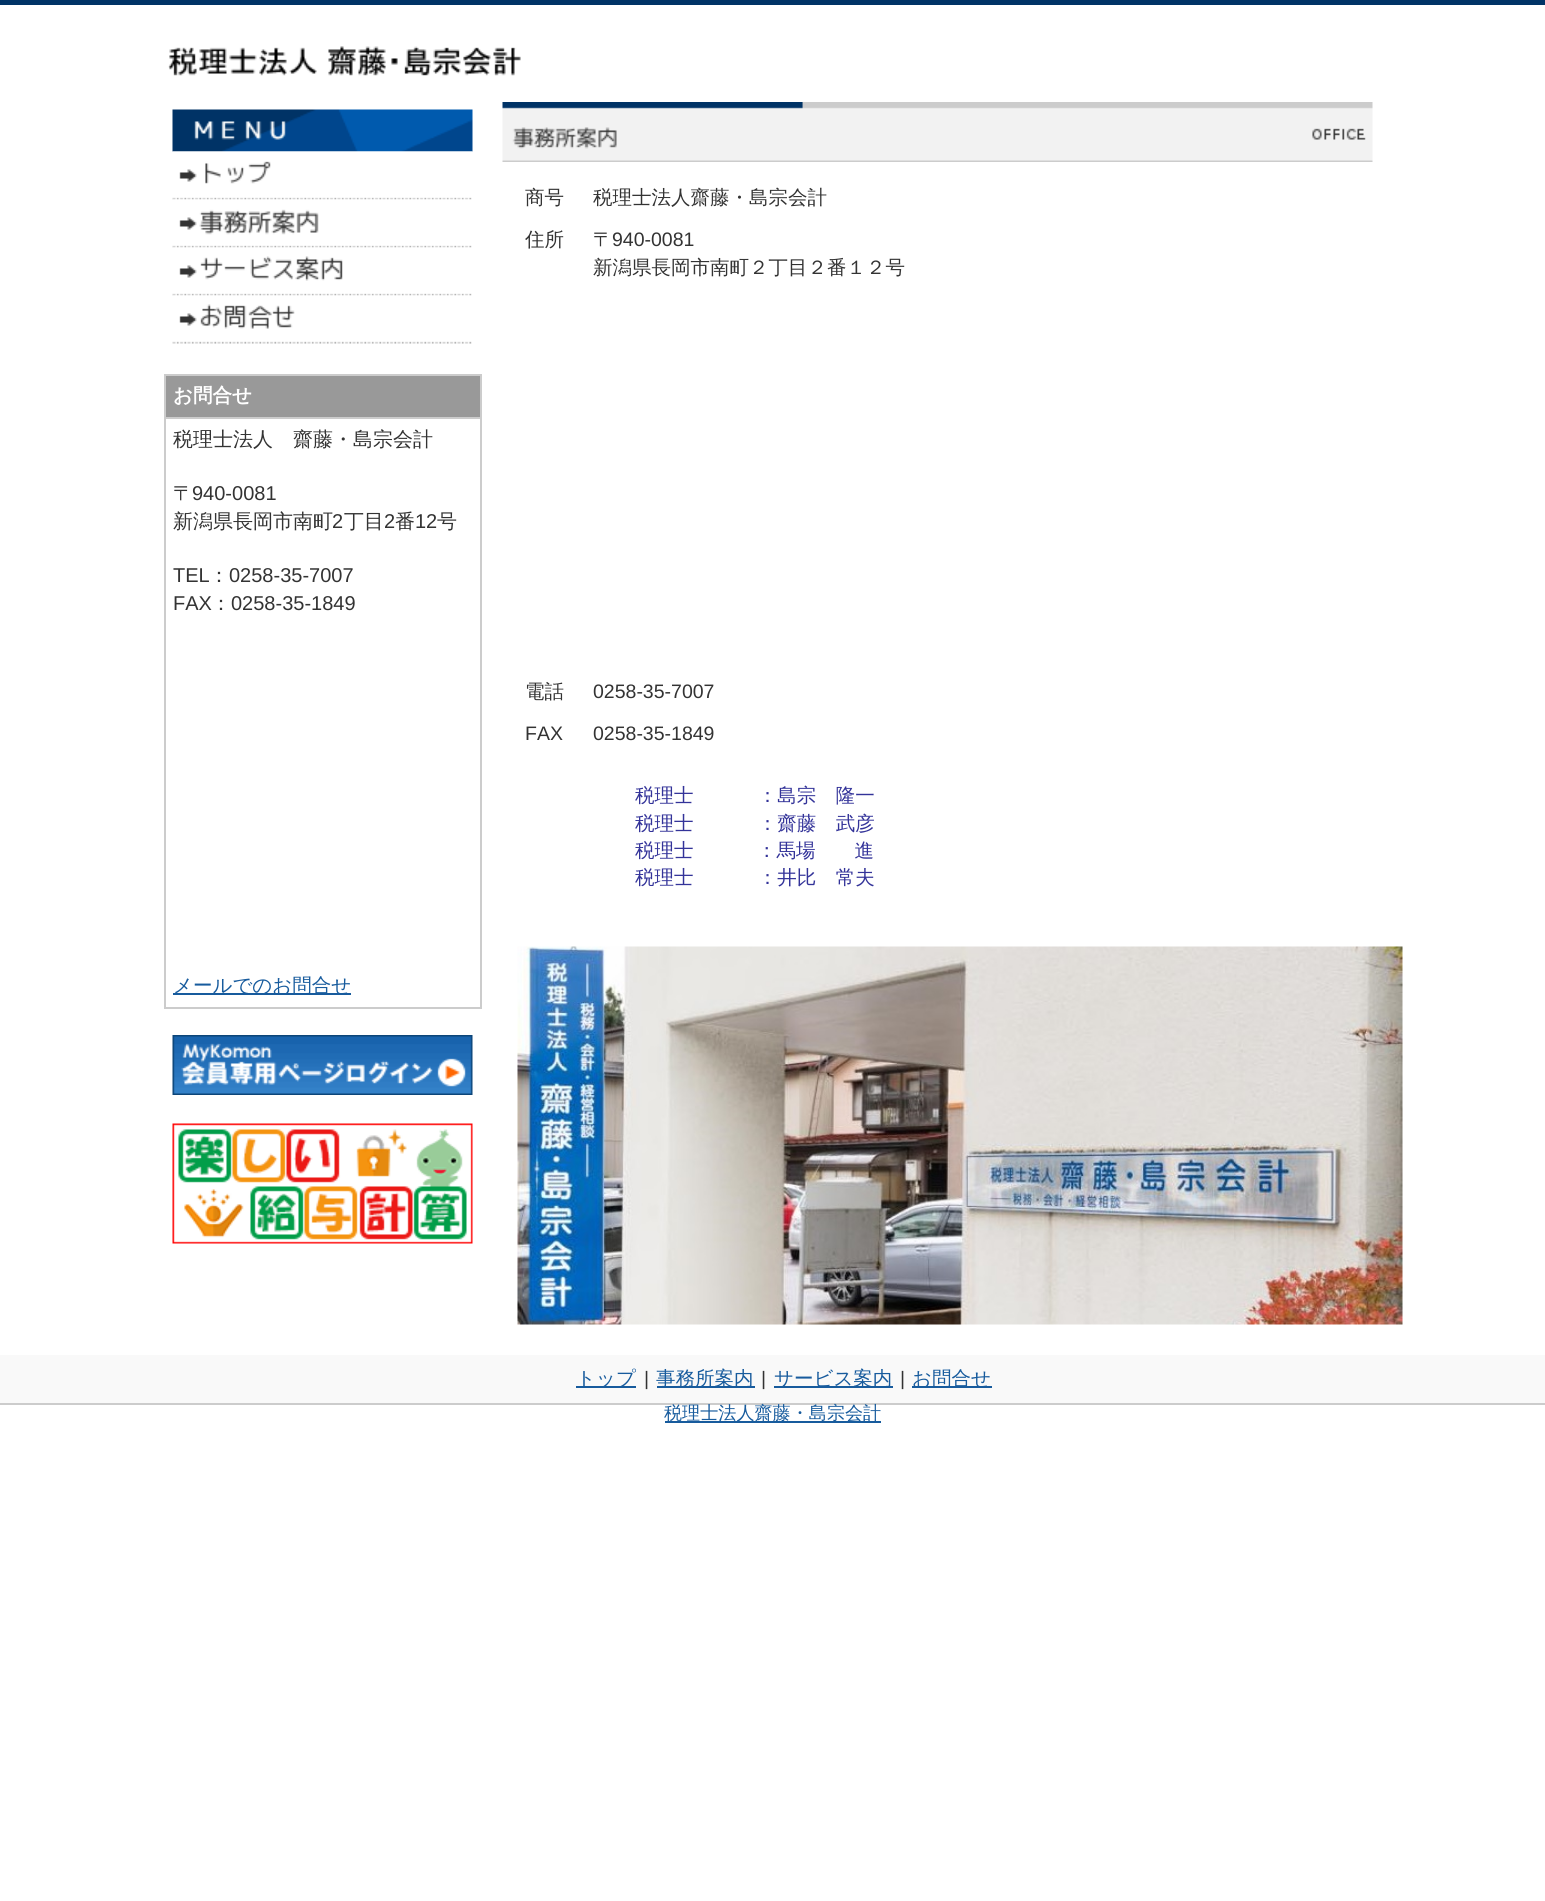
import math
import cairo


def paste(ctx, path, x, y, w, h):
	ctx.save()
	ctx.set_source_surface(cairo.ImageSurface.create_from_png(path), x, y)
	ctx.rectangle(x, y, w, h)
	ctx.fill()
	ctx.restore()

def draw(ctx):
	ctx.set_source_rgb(1, 1, 1)
	ctx.paint()
	ctx.set_source_rgb(0, 0.2, 0.4)
	ctx.rectangle(0, 0, 1545, 5)
	ctx.fill()
	paste(ctx, 'media/1.png', 168, 46, 353, 30)
	paste(ctx, 'media/2.png', 172, 109, 301, 43)
	paste(ctx, 'media/3.png', 172, 151, 301, 49)
	paste(ctx, 'media/4.png', 172, 199, 300, 49)
	paste(ctx, 'media/5.png', 172, 247, 300, 49)
	paste(ctx, 'media/6.png', 172, 295, 300, 49)
	ctx.set_source_rgb(0.6, 0.6, 0.6)
	ctx.rectangle(166, 376, 314, 41)
	ctx.fill()
	ctx.set_source_rgb(0.8, 0.8, 0.8)
	ctx.rectangle(164, 374, 318, 2)
	ctx.rectangle(164, 417, 318, 2)
	ctx.rectangle(480, 417, 2, 591)
	ctx.rectangle(480, 374, 2, 45)
	ctx.rectangle(164, 1007, 318, 2)
	ctx.rectangle(164, 417, 2, 591)
	ctx.rectangle(164, 374, 2, 45)
	ctx.fill()
	ctx.select_font_face('WenQuanYi Zen Hei', cairo.FONT_SLANT_NORMAL, cairo.FONT_WEIGHT_BOLD)
	ctx.set_font_size(19.5)
	ctx.set_source_rgb(1, 1, 1)
	ctx.move_to(173, 402)
	ctx.show_text('お問合せ')
	ctx.select_font_face('WenQuanYi Zen Hei Medium')
	ctx.set_font_size(20)
	ctx.set_source_rgb(0.2, 0.2, 0.2)
	ctx.move_to(173, 446)
	ctx.show_text('税理士法人　齋藤・島宗会計')
	ctx.move_to(173, 500)
	ctx.show_text('〒')
	ctx.select_font_face('Liberation Sans')
	ctx.move_to(192, 500)
	ctx.show_text('940-0081')
	ctx.select_font_face('WenQuanYi Zen Hei Medium')
	ctx.move_to(173, 528)
	ctx.show_text('新潟県長岡市南町')
	ctx.select_font_face('Liberation Sans')
	ctx.move_to(332, 528)
	ctx.show_text('2')
	ctx.select_font_face('WenQuanYi Zen Hei Medium')
	ctx.move_to(344, 528)
	ctx.show_text('丁目')
	ctx.select_font_face('Liberation Sans')
	ctx.move_to(384, 528)
	ctx.show_text('2')
	ctx.select_font_face('WenQuanYi Zen Hei Medium')
	ctx.move_to(395, 528)
	ctx.show_text('番')
	ctx.select_font_face('Liberation Sans')
	ctx.move_to(415, 528)
	ctx.show_text('12')
	ctx.select_font_face('WenQuanYi Zen Hei Medium')
	ctx.move_to(437, 528)
	ctx.show_text('号')
	ctx.select_font_face('Liberation Sans')
	ctx.move_to(173, 582)
	ctx.show_text('TEL')
	ctx.select_font_face('WenQuanYi Zen Hei Medium')
	ctx.move_to(209, 582)
	ctx.show_text('：')
	ctx.select_font_face('Liberation Sans')
	ctx.move_to(229, 582)
	ctx.show_text('0258-35-7007')
	ctx.move_to(173, 610)
	ctx.show_text('FAX')
	ctx.select_font_face('WenQuanYi Zen Hei Medium')
	ctx.move_to(211, 610)
	ctx.show_text('：')
	ctx.select_font_face('Liberation Sans')
	ctx.move_to(231, 610)
	ctx.show_text('0258-35-1849')
	ctx.set_source_rgb(0.09, 0.357, 0.616)
	ctx.rectangle(173, 993, 178, 2)
	ctx.fill()
	ctx.select_font_face('WenQuanYi Zen Hei Medium')
	ctx.set_font_size(19.5)
	ctx.move_to(173, 992)
	ctx.show_text('メールでのお問合せ')
	paste(ctx, 'media/7.png', 172, 1035, 301, 60)
	paste(ctx, 'media/8.png', 172, 1123, 301, 121)
	paste(ctx, 'media/9.png', 502, 102, 871, 60)
	ctx.set_source_rgb(0.2, 0.2, 0.2)
	for x, y, s in [
		(525, 204, '商号'),
		(593, 204, '税理士法人齋藤・島宗会計'),
		(525, 246, '住所'),
		(593, 246, '〒'),
	]:
		ctx.move_to(x, y)
		ctx.show_text(s)
	ctx.select_font_face('Liberation Sans')
	ctx.move_to(612, 246)
	ctx.show_text('940-0081')
	ctx.select_font_face('WenQuanYi Zen Hei Medium')
	ctx.move_to(593, 274)
	ctx.show_text('新潟県長岡市南町２丁目２番１２号')
	ctx.move_to(525, 698)
	ctx.show_text('電話')
	ctx.select_font_face('Liberation Sans')
	for x, y, s in [
		(593, 698, '0258-35-7007'),
		(525, 740, 'FAX'),
		(593, 740, '0258-35-1849'),
	]:
		ctx.move_to(x, y)
		ctx.show_text(s)
	ctx.select_font_face('WenQuanYi Zen Hei Medium')
	ctx.set_source_rgb(0.2, 0.2, 0.6)
	for x, y, s in [
		(635, 802, '税理士　　　 ：島宗　隆一'),
		(635, 830, '税理士　　　 ：齋藤　武彦'),
		(635, 857, '税理士'),
		(757, 857, '：馬場　　進'),
		(635, 884, '税理士　　　 ：井比　常夫'),
	]:
		ctx.move_to(x, y)
		ctx.show_text(s)
	paste(ctx, 'media/10.png', 517, 946, 886, 379)
	ctx.set_source_rgb(0.976, 0.976, 0.976)
	ctx.rectangle(0, 1355, 1545, 48)
	ctx.fill()
	ctx.set_source_rgb(0.09, 0.357, 0.616)
	ctx.rectangle(576, 1386, 60, 2)
	ctx.fill()
	ctx.move_to(576, 1385)
	ctx.show_text('トップ')
	ctx.select_font_face('Liberation Sans')
	ctx.set_source_rgb(0.2, 0.2, 0.2)
	ctx.move_to(644, 1385)
	ctx.show_text('|')
	ctx.set_source_rgb(0.09, 0.357, 0.616)
	ctx.rectangle(657, 1386, 98, 2)
	ctx.fill()
	ctx.select_font_face('WenQuanYi Zen Hei Medium')
	ctx.move_to(656, 1385)
	ctx.show_text('事務所案内')
	ctx.select_font_face('Liberation Sans')
	ctx.set_source_rgb(0.2, 0.2, 0.2)
	ctx.move_to(761, 1385)
	ctx.show_text('|')
	ctx.set_source_rgb(0.09, 0.357, 0.616)
	ctx.rectangle(774, 1386, 119, 2)
	ctx.fill()
	ctx.select_font_face('WenQuanYi Zen Hei Medium')
	ctx.move_to(774, 1385)
	ctx.show_text('サービス案内')
	ctx.select_font_face('Liberation Sans')
	ctx.set_source_rgb(0.2, 0.2, 0.2)
	ctx.move_to(900, 1385)
	ctx.show_text('|')
	ctx.set_source_rgb(0.09, 0.357, 0.616)
	ctx.rectangle(912, 1386, 80, 2)
	ctx.fill()
	ctx.select_font_face('WenQuanYi Zen Hei Medium')
	ctx.move_to(912, 1385)
	ctx.show_text('お問合せ')
	ctx.set_source_rgb(0.8, 0.8, 0.8)
	ctx.rectangle(0, 1403, 1545, 2)
	ctx.fill()
	ctx.set_source_rgb(0.09, 0.357, 0.616)
	ctx.rectangle(665, 1421, 216, 2)
	ctx.fill()
	ctx.set_font_size(18.1)
	ctx.move_to(664, 1419)
	ctx.show_text('税理士法人齋藤・島宗会計')


surface = cairo.ImageSurface(cairo.FORMAT_RGB24, 1545, 1901)
ctx = cairo.Context(surface)
options = cairo.FontOptions()
options.set_hint_metrics(cairo.HINT_METRICS_OFF)
options.set_hint_style(cairo.HINT_STYLE_NONE)
ctx.set_font_options(options)
ctx.set_miter_limit(4)
draw(ctx)
surface.write_to_png('image.png')
